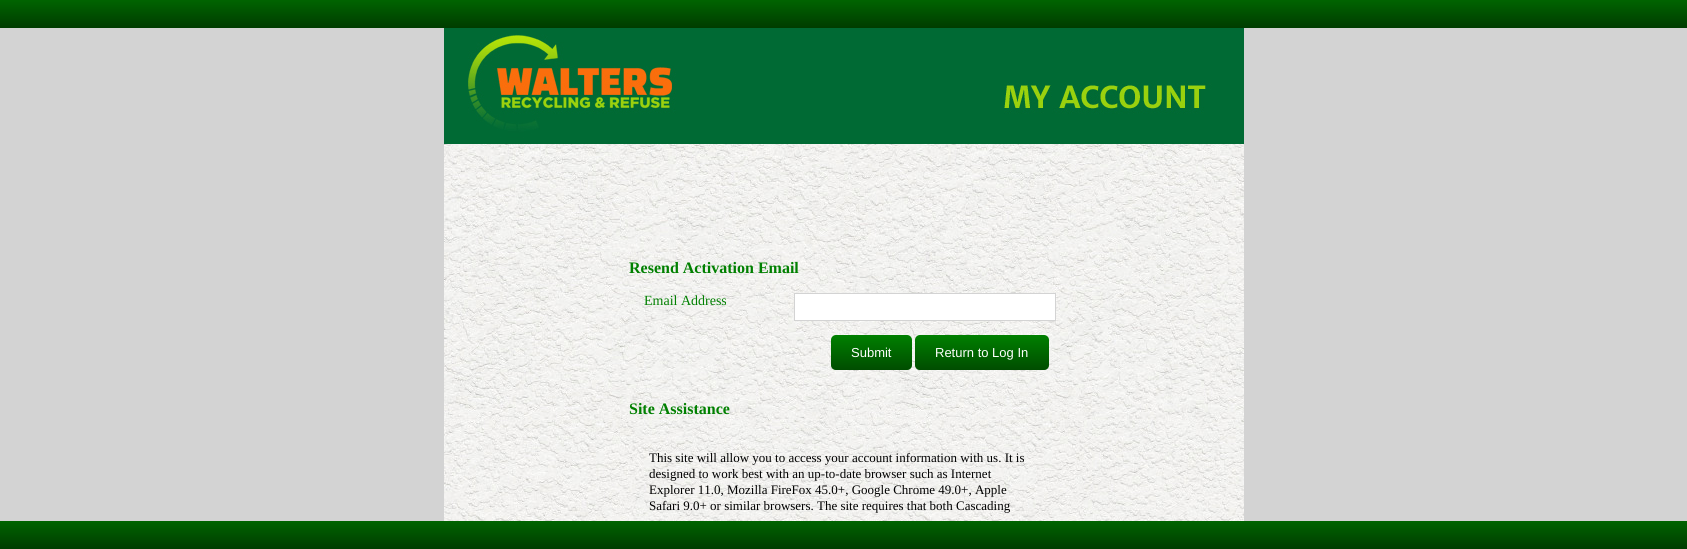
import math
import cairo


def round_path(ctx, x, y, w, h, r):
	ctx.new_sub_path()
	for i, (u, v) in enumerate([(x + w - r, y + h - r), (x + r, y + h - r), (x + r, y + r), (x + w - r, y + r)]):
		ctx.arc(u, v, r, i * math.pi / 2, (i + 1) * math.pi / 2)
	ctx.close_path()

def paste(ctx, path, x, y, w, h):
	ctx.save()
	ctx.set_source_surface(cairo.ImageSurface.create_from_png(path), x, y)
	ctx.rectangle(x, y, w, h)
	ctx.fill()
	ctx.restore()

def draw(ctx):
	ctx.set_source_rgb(0.827, 0.827, 0.827)
	ctx.paint()
	paste(ctx, 'media/1.png', 444, 144, 800, 377)
	gradient = cairo.LinearGradient(844, 0, 844, 28)
	gradient.add_color_stop_rgba(0, 0, 0.392, 0, 1)
	gradient.add_color_stop_rgba(1, 0, 0.235, 0, 1)
	ctx.set_source(gradient)
	ctx.rectangle(0, 0, 1687, 28)
	ctx.fill()
	paste(ctx, 'media/2.png', 444, 28, 800, 116)
	ctx.select_font_face('Liberation Serif', cairo.FONT_SLANT_NORMAL, cairo.FONT_WEIGHT_BOLD)
	ctx.set_font_size(16)
	ctx.set_source_rgb(0, 0.502, 0)
	ctx.move_to(629, 273)
	ctx.show_text('Resend Activation Email')
	ctx.select_font_face('Liberation Serif')
	ctx.set_font_size(14)
	ctx.move_to(644, 305)
	ctx.show_text('Email Address')
	ctx.set_source_rgb(1, 1, 1)
	ctx.rectangle(794.5, 293.5, 261, 27)
	ctx.fill_preserve()
	ctx.set_source_rgb(0.827, 0.827, 0.827)
	ctx.set_line_width(1)
	ctx.stroke()
	ctx.set_source_rgb(0, 0.502, 0)
	round_path(ctx, 831, 335, 81, 35, 5)
	ctx.fill()
	gradient = cairo.LinearGradient(872, 335, 872, 370)
	gradient.add_color_stop_rgba(0, 0, 0, 0, 0)
	gradient.add_color_stop_rgba(1, 0, 0, 0, 0.4)
	ctx.set_source(gradient)
	round_path(ctx, 831, 335, 81, 35, 5)
	ctx.fill()
	ctx.select_font_face('Liberation Sans')
	ctx.set_font_size(13)
	ctx.set_source_rgb(1, 1, 1)
	ctx.move_to(851, 357)
	ctx.show_text('Submit')
	ctx.set_source_rgb(0, 0.502, 0)
	round_path(ctx, 915, 335, 134, 35, 5)
	ctx.fill()
	gradient = cairo.LinearGradient(982, 335, 982, 370)
	gradient.add_color_stop_rgba(0, 0, 0, 0, 0)
	gradient.add_color_stop_rgba(1, 0, 0, 0, 0.4)
	ctx.set_source(gradient)
	round_path(ctx, 915, 335, 134, 35, 5)
	ctx.fill()
	ctx.set_source_rgb(1, 1, 1)
	ctx.move_to(935, 357)
	ctx.show_text('Return to Log In')
	ctx.select_font_face('Liberation Serif', cairo.FONT_SLANT_NORMAL, cairo.FONT_WEIGHT_BOLD)
	ctx.set_font_size(16)
	ctx.set_source_rgb(0, 0.502, 0)
	ctx.move_to(629, 414)
	ctx.show_text('Site Assistance')
	ctx.select_font_face('Liberation Serif')
	ctx.set_font_size(13)
	ctx.set_source_rgb(0, 0, 0)
	for x, y, s in [
		(649, 462, 'This site will allow you to access your account information with us. It is'),
		(649, 478, 'designed to work best with an up-to-date browser such as Internet'),
		(649, 494, 'Explorer 11.0, Mozilla FireFox 45.0+, Google Chrome 49.0+, Apple'),
		(649, 510, 'Safari 9.0+ or similar browsers. The site requires that both Cascading'),
	]:
		ctx.move_to(x, y)
		ctx.show_text(s)
	gradient = cairo.LinearGradient(844, 521, 844, 549)
	gradient.add_color_stop_rgba(0, 0, 0.392, 0, 1)
	gradient.add_color_stop_rgba(1, 0, 0.235, 0, 1)
	ctx.set_source(gradient)
	ctx.rectangle(0, 521, 1687, 28)
	ctx.fill()


surface = cairo.ImageSurface(cairo.FORMAT_RGB24, 1687, 549)
ctx = cairo.Context(surface)
options = cairo.FontOptions()
options.set_hint_metrics(cairo.HINT_METRICS_OFF)
options.set_hint_style(cairo.HINT_STYLE_NONE)
ctx.set_font_options(options)
ctx.set_miter_limit(4)
draw(ctx)
surface.write_to_png('image.png')
